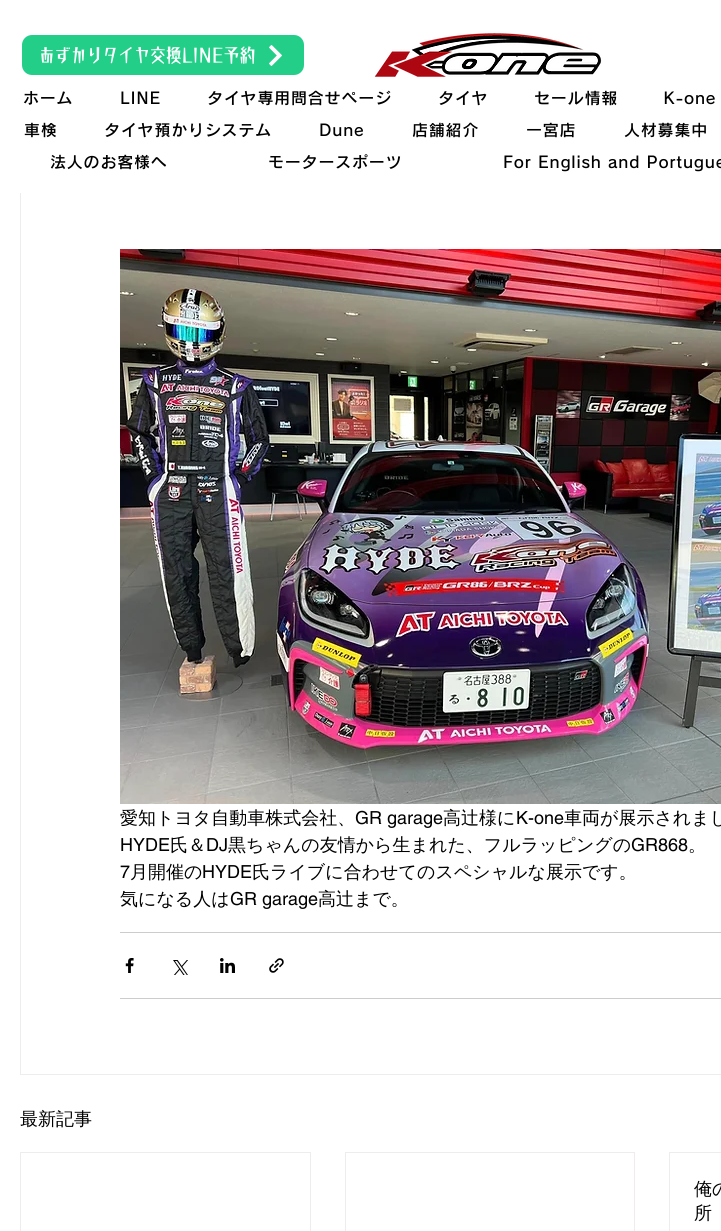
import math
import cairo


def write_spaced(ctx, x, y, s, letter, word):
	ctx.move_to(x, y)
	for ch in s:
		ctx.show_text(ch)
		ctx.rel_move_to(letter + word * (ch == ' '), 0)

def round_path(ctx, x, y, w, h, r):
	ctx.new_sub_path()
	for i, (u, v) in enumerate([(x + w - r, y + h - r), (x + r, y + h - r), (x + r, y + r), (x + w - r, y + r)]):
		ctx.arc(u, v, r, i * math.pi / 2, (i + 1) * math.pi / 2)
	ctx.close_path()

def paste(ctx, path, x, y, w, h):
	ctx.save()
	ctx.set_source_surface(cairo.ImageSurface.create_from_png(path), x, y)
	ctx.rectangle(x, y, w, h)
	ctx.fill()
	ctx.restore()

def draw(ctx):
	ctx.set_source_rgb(1, 1, 1)
	ctx.paint()
	ctx.rectangle(20.5, 4.5, 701, 1070)
	ctx.set_source_rgb(0.933, 0.925, 0.925)
	ctx.set_line_width(1)
	ctx.stroke()
	ctx.set_source_rgb(1, 1, 1)
	ctx.rectangle(20, 4, 701, 189)
	ctx.fill()
	ctx.set_source_rgb(0.133, 0.808, 0.533)
	round_path(ctx, 22, 35, 282, 40, 10)
	ctx.fill()
	ctx.select_font_face('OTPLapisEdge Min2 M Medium')
	ctx.set_font_size(18)
	ctx.set_source_rgb(1, 1, 1)
	ctx.move_to(39, 62)
	ctx.show_text('あずかりタイヤ交換LINE予約')
	paste(ctx, 'media/1.png', 269, 45, 13, 21)
	paste(ctx, 'media/2.png', 374, 33, 228, 44)
	ctx.select_font_face('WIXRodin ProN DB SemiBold')
	ctx.set_font_size(16)
	ctx.set_source_rgb(0, 0, 0)
	for x, y, s in [
		(23, 104, 'ホーム'),
		(120, 104, 'LINE'),
		(207, 104, 'タイヤ専用問合せページ'),
		(438, 104, 'タイヤ'),
		(534, 104, 'セール情報'),
		(664, 104, 'K-one'),
		(24, 136, '車検'),
		(104, 136, 'タイヤ預かりシステム'),
		(319, 136, 'Dune'),
		(412, 136, '店舗紹介'),
		(526, 136, '一宮店'),
		(624, 136, '人材募集中'),
		(50, 168, '法人のお客様へ'),
		(268, 168, 'モータースポーツ'),
		(503, 168, 'For English and Portugue'),
	]:
		write_spaced(ctx, x, y, s, 0.8, 0)
	paste(ctx, 'media/3.png', 120, 249, 601, 555)
	ctx.select_font_face('WenQuanYi Zen Hei Medium')
	ctx.set_font_size(18)
	ctx.move_to(120, 824)
	ctx.show_text('愛知トヨタ自動車株式会社、')
	ctx.select_font_face('helvetica')
	ctx.move_to(355, 824)
	ctx.show_text('GR garage')
	ctx.select_font_face('WenQuanYi Zen Hei Medium')
	ctx.move_to(443, 824)
	ctx.show_text('高辻様に')
	ctx.select_font_face('helvetica')
	ctx.move_to(516, 824)
	ctx.show_text('K-one')
	ctx.select_font_face('WenQuanYi Zen Hei Medium')
	ctx.move_to(564, 824)
	ctx.show_text('車両が展示されまし')
	ctx.select_font_face('helvetica')
	ctx.move_to(120, 851)
	ctx.show_text('HYDE')
	ctx.select_font_face('WenQuanYi Zen Hei Medium')
	ctx.move_to(170, 851)
	ctx.show_text('氏＆')
	ctx.select_font_face('helvetica')
	ctx.move_to(206, 851)
	ctx.show_text('DJ')
	ctx.select_font_face('WenQuanYi Zen Hei Medium')
	ctx.move_to(228, 851)
	ctx.show_text('黒ちゃんの友情から生まれた、フルラッピングの')
	ctx.select_font_face('helvetica')
	ctx.move_to(631, 851)
	ctx.show_text('GR868')
	ctx.select_font_face('WenQuanYi Zen Hei Medium')
	ctx.move_to(688, 851)
	ctx.show_text('。')
	ctx.select_font_face('helvetica')
	ctx.move_to(120, 878)
	ctx.show_text('7')
	ctx.select_font_face('WenQuanYi Zen Hei Medium')
	ctx.move_to(130, 878)
	ctx.show_text('月開催の')
	ctx.select_font_face('helvetica')
	ctx.move_to(202, 878)
	ctx.show_text('HYDE')
	ctx.select_font_face('WenQuanYi Zen Hei Medium')
	ctx.move_to(252, 878)
	ctx.show_text('氏ライブに合わせてのスペシャルな展示です。')
	ctx.move_to(120, 905)
	ctx.show_text('気になる人は')
	ctx.select_font_face('helvetica')
	ctx.move_to(230, 905)
	ctx.show_text('GR garage')
	ctx.select_font_face('WenQuanYi Zen Hei Medium')
	ctx.move_to(318, 905)
	ctx.show_text('高辻まで。')
	ctx.set_source_rgb(0.8, 0.8, 0.8)
	ctx.rectangle(120, 932, 601, 1)
	ctx.fill()
	paste(ctx, 'media/4.png', 125, 958, 9, 15)
	paste(ctx, 'media/5.png', 173, 960, 15, 15)
	paste(ctx, 'media/6.png', 220, 958, 15, 15)
	paste(ctx, 'media/7.png', 269, 958, 15, 15)
	ctx.rectangle(120, 998, 601, 1)
	ctx.fill()
	ctx.set_source_rgb(0, 0, 0)
	ctx.move_to(20, 1125)
	ctx.show_text('最新記事')
	ctx.rectangle(20.5, 1152.5, 290, 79)
	ctx.set_source_rgb(0.933, 0.925, 0.925)
	ctx.stroke()
	ctx.rectangle(345.5, 1152.5, 289, 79)
	ctx.stroke()
	ctx.rectangle(669.5, 1152.5, 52, 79)
	ctx.stroke()
	ctx.set_source_rgb(0, 0, 0)
	ctx.move_to(694, 1195)
	ctx.show_text('俺の')
	ctx.move_to(694, 1219)
	ctx.show_text('所')


surface = cairo.ImageSurface(cairo.FORMAT_RGB24, 721, 1231)
ctx = cairo.Context(surface)
options = cairo.FontOptions()
options.set_hint_metrics(cairo.HINT_METRICS_OFF)
options.set_hint_style(cairo.HINT_STYLE_NONE)
ctx.set_font_options(options)
ctx.set_miter_limit(4)
draw(ctx)
surface.write_to_png('image.png')
